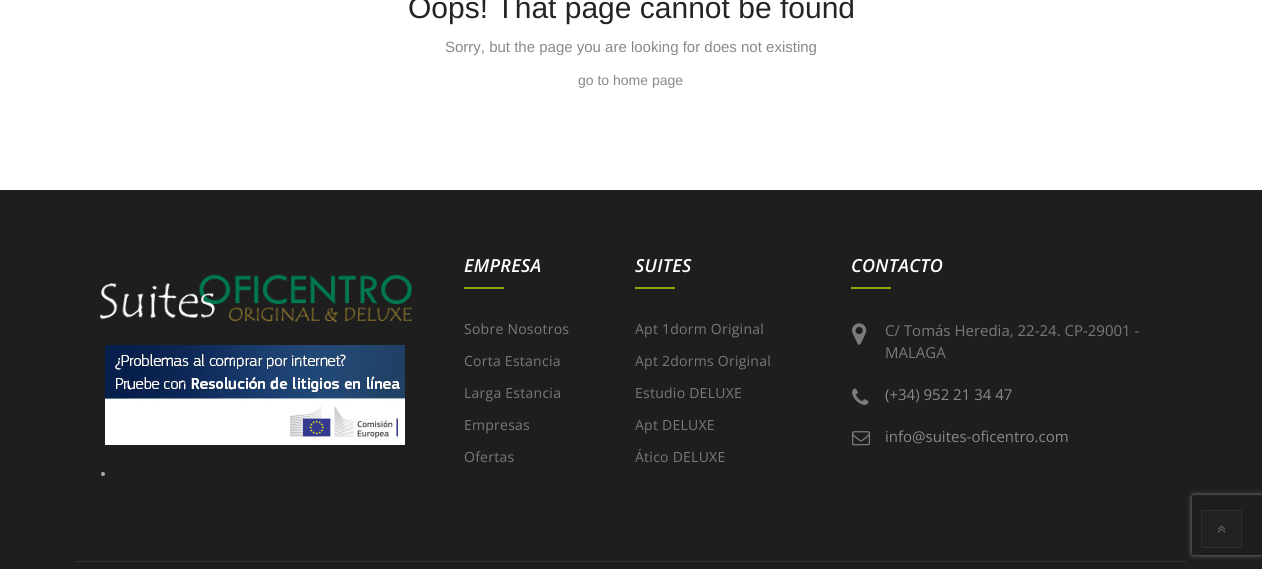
import math
import cairo


def write_spaced(ctx, x, y, s, letter, word):
	ctx.move_to(x, y)
	for ch in s:
		ctx.show_text(ch)
		ctx.rel_move_to(letter + word * (ch == ' '), 0)

def round_path(ctx, x, y, w, h, r):
	ctx.new_sub_path()
	for i, (u, v) in enumerate([(x + w - r, y + h - r), (x + r, y + h - r), (x + r, y + r), (x + w - r, y + r)]):
		ctx.arc(u, v, r, i * math.pi / 2, (i + 1) * math.pi / 2)
	ctx.close_path()

def blur_box(ctx, x, y, w, h, r, blur, alpha):
	ctx.push_group_with_content(cairo.CONTENT_ALPHA)
	ctx.set_operator(cairo.OPERATOR_SOURCE)
	for i in range(15, -16, -2):
		e = blur * i / 6
		if min(w, h) + 2 * e > 0:
			ctx.set_source_rgba(0, 0, 0, alpha * math.erfc((i - 1) / 8.5) / 2)
			round_path(ctx, x - e, y - e, w + 2 * e, h + 2 * e, max(0, min(r + e + blur * .6, min(w, h) / 2 + e)))
			ctx.fill()
	ctx.mask(ctx.pop_group())

def paste(ctx, path, x, y, w, h):
	ctx.save()
	ctx.set_source_surface(cairo.ImageSurface.create_from_png(path), x, y)
	ctx.rectangle(x, y, w, h)
	ctx.fill()
	ctx.restore()

def draw(ctx):
	ctx.set_source_rgb(1, 1, 1)
	ctx.paint()
	ctx.select_font_face('Liberation Sans')
	ctx.set_font_size(30)
	ctx.set_source_rgb(0.141, 0.141, 0.141)
	ctx.move_to(408, 18)
	ctx.show_text('Oops! That page cannot be found')
	ctx.set_font_size(15)
	ctx.set_source_rgb(0.537, 0.537, 0.537)
	ctx.move_to(445, 52)
	ctx.show_text('Sorry, but the page you are looking for does not existing')
	ctx.set_font_size(14)
	ctx.move_to(578, 85)
	ctx.show_text('go to home page')
	ctx.set_source_rgb(0.118, 0.118, 0.118)
	ctx.rectangle(0, 190, 1262, 379)
	ctx.fill()
	paste(ctx, 'media/1.png', 100, 274, 312, 49)
	paste(ctx, 'media/2.png', 105, 345, 300, 100)
	ctx.set_source_rgb(0.667, 0.667, 0.667)
	ctx.arc(103, 474, 2, 0, 2 * math.pi)
	ctx.fill()
	ctx.select_font_face('Open Sans SemiBold', cairo.FONT_SLANT_ITALIC)
	ctx.set_font_size(18)
	ctx.set_source_rgb(1, 1, 1)
	write_spaced(ctx, 464, 272, 'EMPRESA', 0.25, 0)
	ctx.set_source_rgb(0.522, 0.671, 0)
	ctx.rectangle(464, 287, 40, 2)
	ctx.fill()
	ctx.select_font_face('Open Sans')
	ctx.set_font_size(14)
	ctx.set_source_rgb(0.475, 0.475, 0.475)
	for x, y, s in [
		(464, 334, 'Sobre Nosotros'),
		(464, 366, 'Corta Estancia'),
		(464, 398, 'Larga Estancia'),
		(464, 430, 'Empresas'),
		(464, 462, 'Ofertas'),
	]:
		write_spaced(ctx, x, y, s, 0.25, 0)
	ctx.select_font_face('Open Sans SemiBold', cairo.FONT_SLANT_ITALIC)
	ctx.set_font_size(18)
	ctx.set_source_rgb(1, 1, 1)
	write_spaced(ctx, 635, 272, 'SUITES', 0.25, 0)
	ctx.set_source_rgb(0.522, 0.671, 0)
	ctx.rectangle(635, 287, 40, 2)
	ctx.fill()
	ctx.select_font_face('Open Sans')
	ctx.set_font_size(14)
	ctx.set_source_rgb(0.475, 0.475, 0.475)
	for x, y, s in [
		(635, 334, 'Apt 1dorm Original'),
		(635, 366, 'Apt 2dorms Original'),
		(635, 398, 'Estudio DELUXE'),
		(635, 430, 'Apt DELUXE'),
		(635, 462, 'Ático DELUXE'),
	]:
		write_spaced(ctx, x, y, s, 0.25, 0)
	ctx.select_font_face('Open Sans SemiBold', cairo.FONT_SLANT_ITALIC)
	ctx.set_font_size(18)
	ctx.set_source_rgb(1, 1, 1)
	write_spaced(ctx, 851, 272, 'CONTACTO', 0.25, 0)
	ctx.set_source_rgb(0.522, 0.671, 0)
	ctx.rectangle(851, 287, 40, 2)
	ctx.fill()
	paste(ctx, 'media/3.png', 852, 323, 15, 22)
	ctx.select_font_face('Open Sans')
	ctx.set_font_size(15)
	ctx.set_source_rgb(0.475, 0.475, 0.475)
	ctx.move_to(885, 336)
	ctx.show_text('C/ Tomás Heredia, 22-24. CP-29001 -')
	ctx.move_to(885, 358)
	ctx.show_text('MALAGA')
	paste(ctx, 'media/4.png', 852, 388, 17, 17)
	ctx.set_source_rgb(0.537, 0.537, 0.537)
	ctx.move_to(885, 400)
	ctx.show_text('(+34) 952 21 34 47')
	paste(ctx, 'media/5.png', 852, 431, 18, 15)
	ctx.move_to(885, 442)
	ctx.show_text('info@suites-oficentro.com')
	ctx.set_source_rgb(0.196, 0.196, 0.196)
	ctx.rectangle(76, 561, 1110, 1)
	ctx.fill()
	ctx.save()
	ctx.set_fill_rule(cairo.FILL_RULE_EVEN_ODD)
	ctx.new_path()
	ctx.move_to(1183, 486)
	ctx.line_to(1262, 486)
	ctx.line_to(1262, 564)
	ctx.line_to(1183, 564)
	ctx.close_path()
	ctx.move_to(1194, 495)
	ctx.line_to(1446, 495)
	ctx.curve_to(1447, 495, 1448, 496, 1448, 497)
	ctx.line_to(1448, 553)
	ctx.curve_to(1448, 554, 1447, 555, 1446, 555)
	ctx.line_to(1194, 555)
	ctx.curve_to(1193, 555, 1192, 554, 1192, 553)
	ctx.line_to(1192, 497)
	ctx.curve_to(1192, 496, 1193, 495, 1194, 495)
	ctx.close_path()
	ctx.clip()
	ctx.set_source_rgb(0.502, 0.502, 0.502)
	blur_box(ctx, 1192, 495, 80, 60, 2, 2.5, 1)
	ctx.restore()
	ctx.set_source_rgb(0.129, 0.129, 0.129)
	round_path(ctx, 1201.5, 510.5, 40, 37, 1.5)
	ctx.fill_preserve()
	ctx.set_source_rgb(0.184, 0.184, 0.184)
	ctx.set_line_width(1)
	ctx.stroke()
	paste(ctx, 'media/6.png', 1217, 525, 9, 8)


surface = cairo.ImageSurface(cairo.FORMAT_RGB24, 1262, 569)
ctx = cairo.Context(surface)
options = cairo.FontOptions()
options.set_hint_metrics(cairo.HINT_METRICS_OFF)
options.set_hint_style(cairo.HINT_STYLE_NONE)
ctx.set_font_options(options)
ctx.set_miter_limit(4)
draw(ctx)
surface.write_to_png('image.png')
